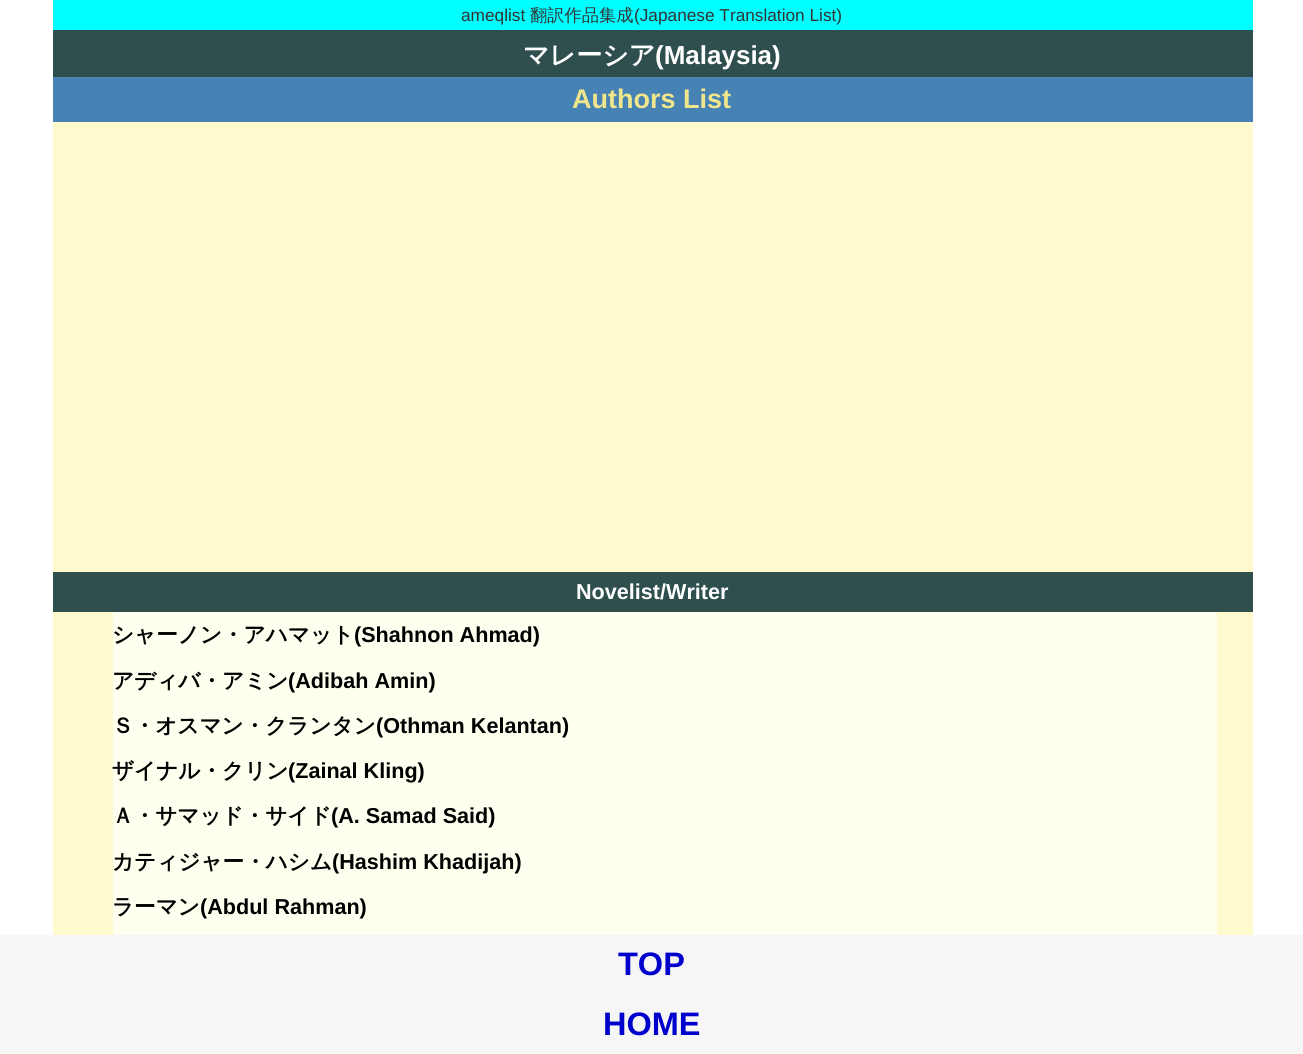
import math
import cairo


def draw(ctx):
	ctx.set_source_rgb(1, 1, 1)
	ctx.paint()
	ctx.set_source_rgb(1, 0.98, 0.804)
	ctx.rectangle(53, 122, 1200, 813)
	ctx.fill()
	ctx.set_source_rgb(0, 1, 1)
	ctx.rectangle(53, 0, 1200, 30)
	ctx.fill()
	ctx.select_font_face('Liberation Sans')
	ctx.set_font_size(17.25)
	ctx.set_source_rgb(0.2, 0.2, 0.2)
	ctx.move_to(461, 21)
	ctx.show_text('ameqlist')
	ctx.select_font_face('WenQuanYi Zen Hei Medium')
	ctx.move_to(530, 21)
	ctx.show_text('翻訳作品集成')
	ctx.select_font_face('Liberation Sans')
	ctx.move_to(634, 21)
	ctx.show_text('(Japanese Translation List)')
	ctx.set_source_rgb(0.184, 0.31, 0.31)
	ctx.rectangle(53, 30, 1200, 47)
	ctx.fill()
	ctx.select_font_face('WenQuanYi Zen Hei', cairo.FONT_SLANT_NORMAL, cairo.FONT_WEIGHT_BOLD)
	ctx.set_font_size(26)
	ctx.set_source_rgb(1, 1, 1)
	ctx.move_to(523, 64)
	ctx.show_text('マレーシア')
	ctx.select_font_face('Liberation Sans', cairo.FONT_SLANT_NORMAL, cairo.FONT_WEIGHT_BOLD)
	ctx.move_to(655, 64)
	ctx.show_text('(Malaysia)')
	ctx.set_source_rgb(0.275, 0.51, 0.706)
	ctx.rectangle(53, 77, 1200, 45)
	ctx.fill()
	ctx.set_font_size(27)
	ctx.set_source_rgb(0.941, 0.902, 0.549)
	ctx.move_to(572, 108)
	ctx.show_text('Authors List')
	ctx.set_source_rgb(0.184, 0.31, 0.31)
	ctx.rectangle(53, 572, 1200, 40)
	ctx.fill()
	ctx.set_font_size(21.6)
	ctx.set_source_rgb(1, 1, 1)
	ctx.move_to(576, 599)
	ctx.show_text('Novelist/Writer')
	ctx.set_source_rgb(1, 1, 0.941)
	ctx.rectangle(113, 612, 1104, 323)
	ctx.fill()
	ctx.select_font_face('WenQuanYi Zen Hei', cairo.FONT_SLANT_NORMAL, cairo.FONT_WEIGHT_BOLD)
	ctx.set_source_rgb(0, 0, 0)
	ctx.move_to(112, 642)
	ctx.show_text('シャーノン・アハマット')
	ctx.select_font_face('Liberation Sans', cairo.FONT_SLANT_NORMAL, cairo.FONT_WEIGHT_BOLD)
	ctx.move_to(354, 642)
	ctx.show_text('(Shahnon Ahmad)')
	ctx.select_font_face('WenQuanYi Zen Hei', cairo.FONT_SLANT_NORMAL, cairo.FONT_WEIGHT_BOLD)
	ctx.move_to(112, 688)
	ctx.show_text('アディバ・アミン')
	ctx.select_font_face('Liberation Sans', cairo.FONT_SLANT_NORMAL, cairo.FONT_WEIGHT_BOLD)
	ctx.move_to(288, 688)
	ctx.show_text('(Adibah Amin)')
	ctx.select_font_face('WenQuanYi Zen Hei', cairo.FONT_SLANT_NORMAL, cairo.FONT_WEIGHT_BOLD)
	ctx.move_to(112, 733)
	ctx.show_text('Ｓ・オスマン・クランタン')
	ctx.select_font_face('Liberation Sans', cairo.FONT_SLANT_NORMAL, cairo.FONT_WEIGHT_BOLD)
	ctx.move_to(376, 733)
	ctx.show_text('(Othman Kelantan)')
	ctx.select_font_face('WenQuanYi Zen Hei', cairo.FONT_SLANT_NORMAL, cairo.FONT_WEIGHT_BOLD)
	ctx.move_to(112, 778)
	ctx.show_text('ザイナル・クリン')
	ctx.select_font_face('Liberation Sans', cairo.FONT_SLANT_NORMAL, cairo.FONT_WEIGHT_BOLD)
	ctx.move_to(288, 778)
	ctx.show_text('(Zainal Kling)')
	ctx.select_font_face('WenQuanYi Zen Hei', cairo.FONT_SLANT_NORMAL, cairo.FONT_WEIGHT_BOLD)
	ctx.move_to(112, 823)
	ctx.show_text('Ａ・サマッド・サイド')
	ctx.select_font_face('Liberation Sans', cairo.FONT_SLANT_NORMAL, cairo.FONT_WEIGHT_BOLD)
	ctx.move_to(331, 823)
	ctx.show_text('(A. Samad Said)')
	ctx.select_font_face('WenQuanYi Zen Hei', cairo.FONT_SLANT_NORMAL, cairo.FONT_WEIGHT_BOLD)
	ctx.move_to(112, 869)
	ctx.show_text('カティジャー・ハシム')
	ctx.select_font_face('Liberation Sans', cairo.FONT_SLANT_NORMAL, cairo.FONT_WEIGHT_BOLD)
	ctx.move_to(332, 869)
	ctx.show_text('(Hashim Khadijah)')
	ctx.select_font_face('WenQuanYi Zen Hei', cairo.FONT_SLANT_NORMAL, cairo.FONT_WEIGHT_BOLD)
	ctx.move_to(112, 914)
	ctx.show_text('ラーマン')
	ctx.select_font_face('Liberation Sans', cairo.FONT_SLANT_NORMAL, cairo.FONT_WEIGHT_BOLD)
	ctx.move_to(200, 914)
	ctx.show_text('(Abdul Rahman)')
	ctx.set_source_rgb(0.961, 0.961, 0.961)
	ctx.rectangle(0, 935, 1303, 119)
	ctx.fill()
	ctx.set_font_size(32.5)
	ctx.set_source_rgb(0, 0, 0.804)
	ctx.move_to(618, 975)
	ctx.show_text('TOP')
	ctx.move_to(603, 1035)
	ctx.show_text('HOME')


surface = cairo.ImageSurface(cairo.FORMAT_RGB24, 1303, 1054)
ctx = cairo.Context(surface)
options = cairo.FontOptions()
options.set_hint_metrics(cairo.HINT_METRICS_OFF)
options.set_hint_style(cairo.HINT_STYLE_NONE)
ctx.set_font_options(options)
ctx.set_miter_limit(4)
draw(ctx)
surface.write_to_png('image.png')
